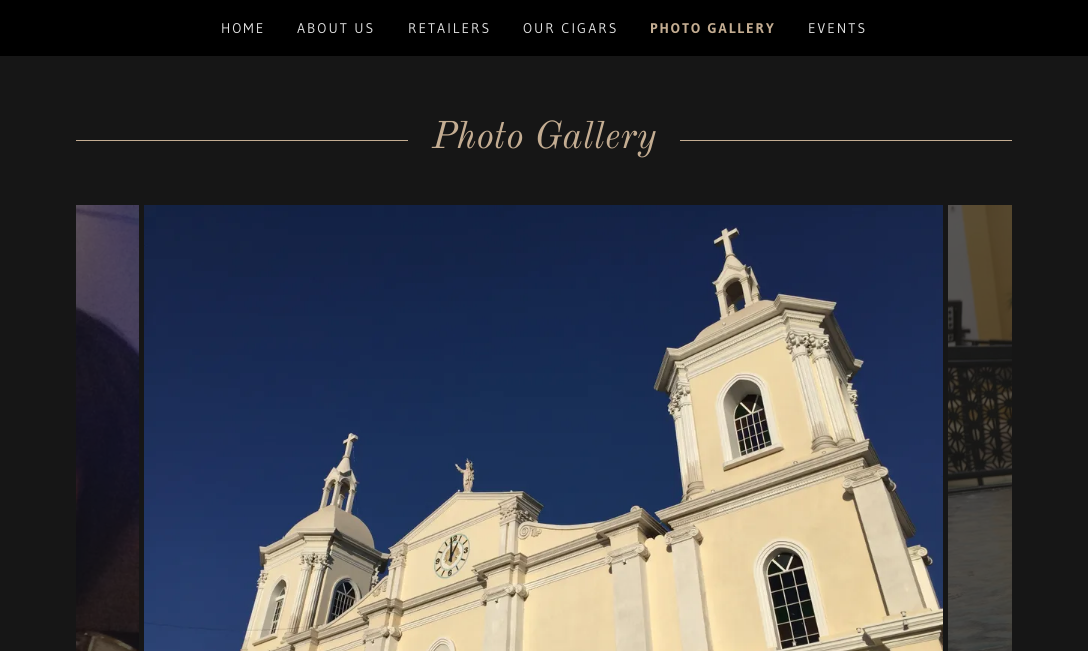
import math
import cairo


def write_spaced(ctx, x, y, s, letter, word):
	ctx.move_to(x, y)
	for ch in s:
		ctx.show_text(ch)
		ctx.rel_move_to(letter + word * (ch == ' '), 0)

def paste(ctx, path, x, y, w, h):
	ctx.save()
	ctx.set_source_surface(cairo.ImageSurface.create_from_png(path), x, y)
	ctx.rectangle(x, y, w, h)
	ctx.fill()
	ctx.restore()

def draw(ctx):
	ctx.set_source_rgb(0, 0, 0)
	ctx.paint()
	ctx.select_font_face('Gudea')
	ctx.set_font_size(14)
	ctx.set_source_rgb(0.886, 0.886, 0.886)
	for x, y, s in [
		(221, 33, 'HOME'),
		(297, 33, 'ABOUT US'),
		(408, 33, 'RETAILERS'),
		(523, 33, 'OUR CIGARS'),
	]:
		write_spaced(ctx, x, y, s, 2, 0)
	ctx.select_font_face('Gudea', cairo.FONT_SLANT_NORMAL, cairo.FONT_WEIGHT_BOLD)
	ctx.set_source_rgb(0.769, 0.678, 0.573)
	write_spaced(ctx, 650, 33, 'PHOTO GALLERY', 2, 0)
	ctx.select_font_face('Gudea')
	ctx.set_source_rgb(0.886, 0.886, 0.886)
	write_spaced(ctx, 808, 33, 'EVENTS', 2, 0)
	ctx.set_source_rgb(0.086, 0.086, 0.086)
	ctx.rectangle(0, 56, 1088, 595)
	ctx.fill()
	ctx.set_source_rgb(0.769, 0.678, 0.573)
	ctx.rectangle(76, 140, 332, 1)
	ctx.fill()
	ctx.select_font_face('Old Standard TT', cairo.FONT_SLANT_ITALIC)
	ctx.set_font_size(38)
	ctx.move_to(432, 148)
	ctx.show_text('Photo Gallery')
	ctx.rectangle(680, 140, 332, 1)
	ctx.fill()
	paste(ctx, 'media/1.png', 76, 205, 63, 446)
	paste(ctx, 'media/2.png', 144, 205, 799, 446)
	paste(ctx, 'media/3.png', 948, 205, 64, 446)


surface = cairo.ImageSurface(cairo.FORMAT_RGB24, 1088, 651)
ctx = cairo.Context(surface)
options = cairo.FontOptions()
options.set_hint_metrics(cairo.HINT_METRICS_OFF)
options.set_hint_style(cairo.HINT_STYLE_NONE)
ctx.set_font_options(options)
ctx.set_miter_limit(4)
draw(ctx)
surface.write_to_png('image.png')
